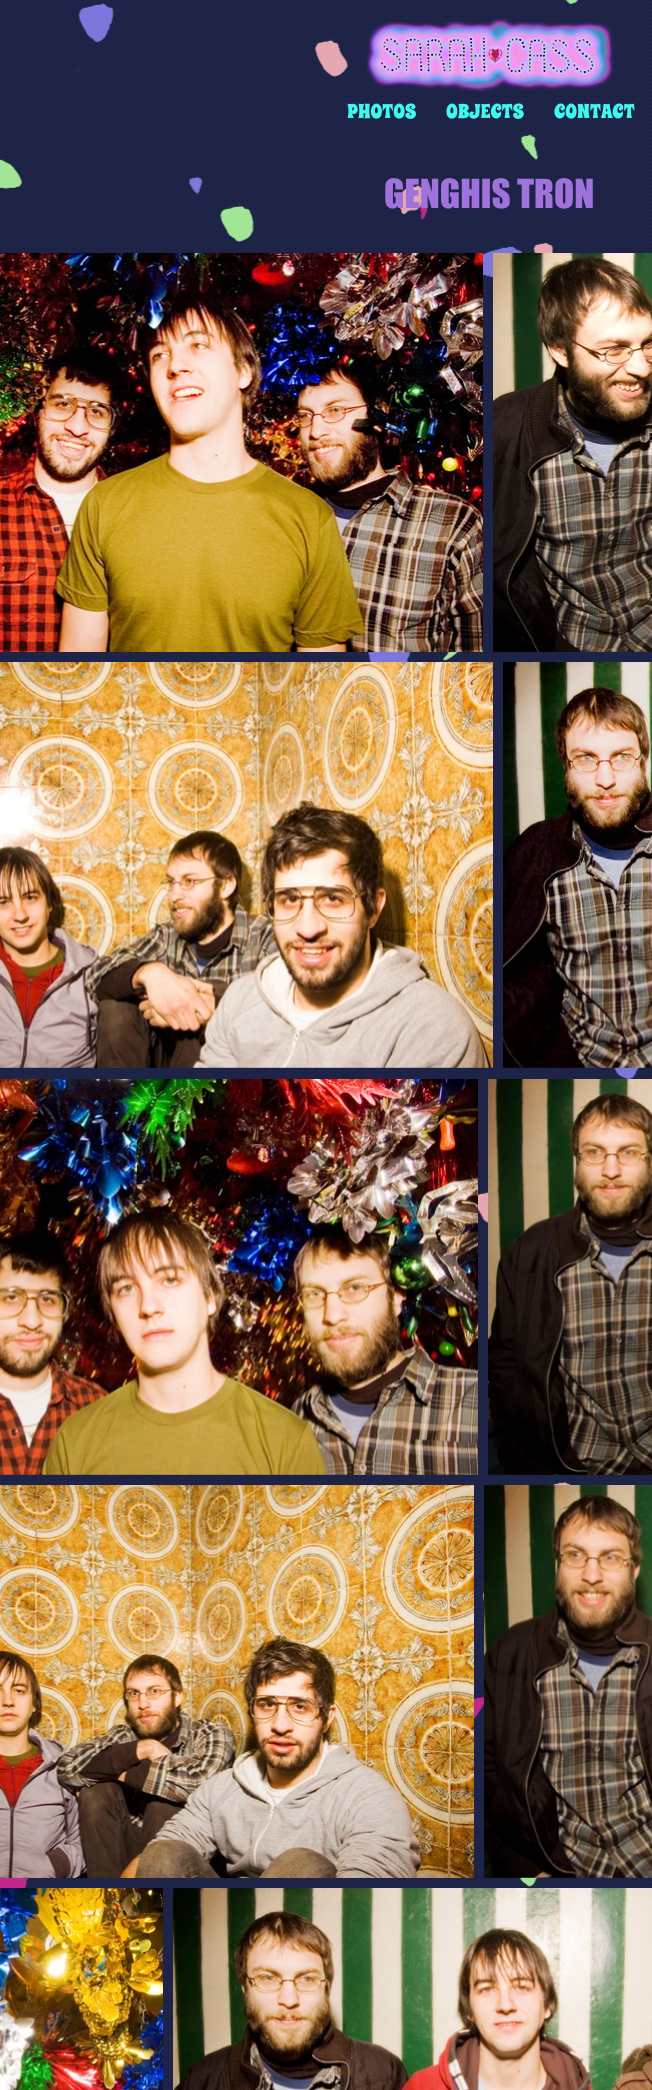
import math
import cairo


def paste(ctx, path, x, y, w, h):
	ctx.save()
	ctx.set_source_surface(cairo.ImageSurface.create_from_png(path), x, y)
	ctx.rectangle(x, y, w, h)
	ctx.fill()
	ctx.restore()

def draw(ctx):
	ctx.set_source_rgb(1, 1, 1)
	ctx.paint()
	paste(ctx, 'media/1.png', 0, 0, 652, 2090)
	paste(ctx, 'media/2.png', 366, 18, 248, 74)
	ctx.select_font_face('Spicy Rice')
	ctx.set_font_size(20)
	ctx.set_source_rgb(0.243, 0.973, 0.937)
	for x, y, s in [
		(347, 118, 'PHOTOS'),
		(446, 118, 'OBJECTS'),
		(554, 118, 'CONTACT'),
	]:
		ctx.move_to(x, y)
		ctx.show_text(s)
	ctx.select_font_face('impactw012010')
	ctx.set_font_size(37)
	ctx.set_source_rgb(0.627, 0.447, 0.859)
	ctx.move_to(384, 208)
	ctx.show_text('GENGHIS TRON')
	paste(ctx, 'media/3.png', 0, 253, 483, 399)
	paste(ctx, 'media/4.png', 493, 253, 159, 399)
	paste(ctx, 'media/5.png', 0, 662, 493, 406)
	paste(ctx, 'media/6.png', 503, 662, 149, 406)
	paste(ctx, 'media/7.png', 0, 1079, 478, 396)
	paste(ctx, 'media/8.png', 488, 1079, 164, 396)
	paste(ctx, 'media/9.png', 0, 1485, 474, 393)
	paste(ctx, 'media/10.png', 484, 1485, 168, 393)
	paste(ctx, 'media/11.png', 0, 1888, 163, 202)
	paste(ctx, 'media/12.png', 173, 1888, 479, 202)


surface = cairo.ImageSurface(cairo.FORMAT_RGB24, 652, 2090)
ctx = cairo.Context(surface)
options = cairo.FontOptions()
options.set_hint_metrics(cairo.HINT_METRICS_OFF)
options.set_hint_style(cairo.HINT_STYLE_NONE)
ctx.set_font_options(options)
ctx.set_miter_limit(4)
draw(ctx)
surface.write_to_png('image.png')
